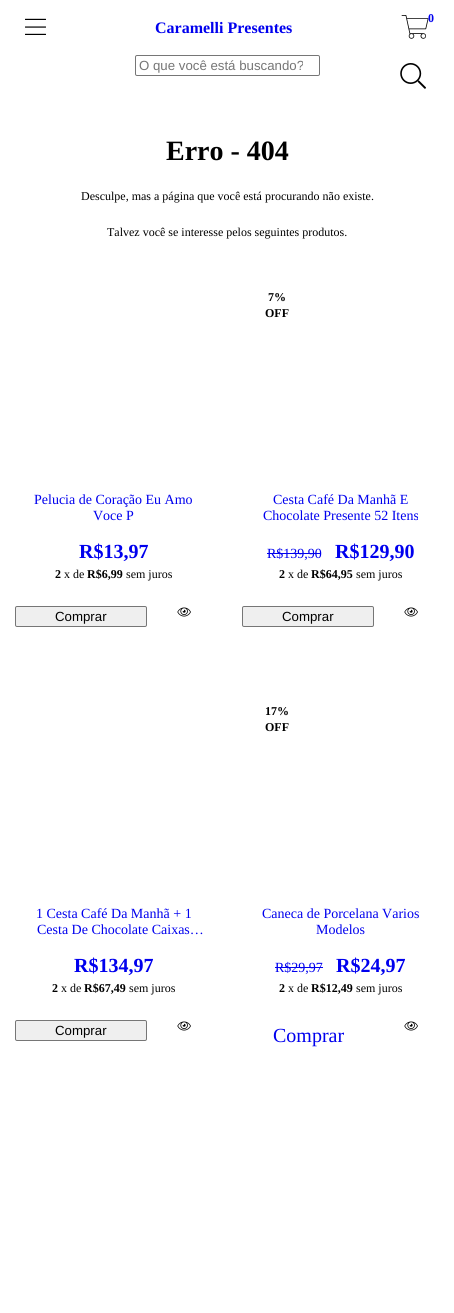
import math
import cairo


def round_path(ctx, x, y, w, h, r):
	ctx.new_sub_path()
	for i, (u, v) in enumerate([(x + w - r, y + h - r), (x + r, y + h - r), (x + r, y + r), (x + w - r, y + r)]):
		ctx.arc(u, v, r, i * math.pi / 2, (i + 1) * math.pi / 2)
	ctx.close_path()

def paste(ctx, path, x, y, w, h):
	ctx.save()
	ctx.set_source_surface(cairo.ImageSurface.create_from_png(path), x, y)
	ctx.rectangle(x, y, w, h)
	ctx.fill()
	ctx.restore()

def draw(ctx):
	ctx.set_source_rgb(1, 1, 1)
	ctx.paint()
	paste(ctx, 'media/1.png', 25, 18, 21, 17)
	ctx.select_font_face('Liberation Serif', cairo.FONT_SLANT_NORMAL, cairo.FONT_WEIGHT_BOLD)
	ctx.set_font_size(16)
	ctx.set_source_rgb(0, 0, 0.933)
	ctx.move_to(155, 33)
	ctx.show_text('Caramelli Presentes')
	paste(ctx, 'media/2.png', 401, 15, 28, 24)
	ctx.set_font_size(12)
	ctx.move_to(428, 22)
	ctx.show_text('0')
	round_path(ctx, 135.5, 55.5, 184, 20, 1.5)
	ctx.set_source_rgb(0.463, 0.463, 0.463)
	ctx.set_line_width(1)
	ctx.stroke()
	ctx.save()
	ctx.rectangle(139, 58, 164, 15)
	ctx.clip()
	ctx.select_font_face('Liberation Sans')
	ctx.set_font_size(13.25)
	ctx.set_source_rgb(0.459, 0.459, 0.459)
	ctx.move_to(139, 70)
	ctx.show_text('O que você está buscando?')
	ctx.restore()
	paste(ctx, 'media/3.png', 400, 63, 26, 26)
	ctx.set_font_size(28)
	ctx.set_source_rgb(0, 0, 0)
	ctx.move_to(166, 160)
	ctx.show_text('Erro - 404')
	ctx.select_font_face('Liberation Serif')
	ctx.set_font_size(12)
	ctx.move_to(81, 200)
	ctx.show_text('Desculpe, mas a página que você está procurando não existe.')
	ctx.move_to(107, 236)
	ctx.show_text('Talvez você se interesse pelos seguintes produtos.')
	ctx.set_font_size(14)
	ctx.set_source_rgb(0, 0, 0.933)
	ctx.move_to(34, 504)
	ctx.show_text('Pelucia de Coração Eu Amo')
	ctx.move_to(93, 520)
	ctx.show_text('Voce P')
	ctx.select_font_face('Liberation Serif', cairo.FONT_SLANT_NORMAL, cairo.FONT_WEIGHT_BOLD)
	ctx.set_font_size(20)
	ctx.move_to(79, 558)
	ctx.show_text('R$13,97')
	ctx.set_font_size(12)
	ctx.set_source_rgb(0, 0, 0)
	ctx.move_to(55, 578)
	ctx.show_text('2')
	ctx.select_font_face('Liberation Serif')
	ctx.move_to(64, 578)
	ctx.show_text('x de')
	ctx.select_font_face('Liberation Serif', cairo.FONT_SLANT_NORMAL, cairo.FONT_WEIGHT_BOLD)
	ctx.move_to(87, 578)
	ctx.show_text('R$6,99')
	ctx.select_font_face('Liberation Serif')
	ctx.move_to(126, 578)
	ctx.show_text('sem juros')
	ctx.set_source_rgb(0.937, 0.937, 0.937)
	round_path(ctx, 15.5, 606.5, 131, 20, 1.5)
	ctx.fill_preserve()
	ctx.set_source_rgb(0.463, 0.463, 0.463)
	ctx.stroke()
	ctx.select_font_face('Liberation Sans')
	ctx.set_font_size(13.25)
	ctx.set_source_rgb(0, 0, 0)
	ctx.move_to(55, 621)
	ctx.show_text('Comprar')
	paste(ctx, 'media/4.png', 177, 607, 14, 10)
	ctx.select_font_face('Liberation Serif', cairo.FONT_SLANT_NORMAL, cairo.FONT_WEIGHT_BOLD)
	ctx.set_font_size(12)
	ctx.move_to(268, 301)
	ctx.show_text('7%')
	ctx.move_to(265, 317)
	ctx.show_text('OFF')
	ctx.select_font_face('Liberation Serif')
	ctx.set_font_size(14)
	ctx.set_source_rgb(0, 0, 0.933)
	for x, y, s in [
		(273, 504, 'Cesta Café Da Manhã E'),
		(263, 520, 'Chocolate Presente 52 Itens'),
		(267, 558, 'R$139,90'),
	]:
		ctx.move_to(x, y)
		ctx.show_text(s)
	ctx.rectangle(267, 553, 54, 1)
	ctx.fill()
	ctx.select_font_face('Liberation Serif', cairo.FONT_SLANT_NORMAL, cairo.FONT_WEIGHT_BOLD)
	ctx.set_font_size(20)
	ctx.move_to(335, 558)
	ctx.show_text('R$129,90')
	ctx.set_font_size(12)
	ctx.set_source_rgb(0, 0, 0)
	ctx.move_to(279, 578)
	ctx.show_text('2')
	ctx.select_font_face('Liberation Serif')
	ctx.move_to(288, 578)
	ctx.show_text('x de')
	ctx.select_font_face('Liberation Serif', cairo.FONT_SLANT_NORMAL, cairo.FONT_WEIGHT_BOLD)
	ctx.move_to(311, 578)
	ctx.show_text('R$64,95')
	ctx.select_font_face('Liberation Serif')
	ctx.move_to(356, 578)
	ctx.show_text('sem juros')
	ctx.set_source_rgb(0.937, 0.937, 0.937)
	round_path(ctx, 242.5, 606.5, 131, 20, 1.5)
	ctx.fill_preserve()
	ctx.set_source_rgb(0.463, 0.463, 0.463)
	ctx.stroke()
	ctx.select_font_face('Liberation Sans')
	ctx.set_font_size(13.25)
	ctx.set_source_rgb(0, 0, 0)
	ctx.move_to(282, 621)
	ctx.show_text('Comprar')
	paste(ctx, 'media/4.png', 404, 607, 14, 10)
	ctx.select_font_face('Liberation Serif')
	ctx.set_font_size(14)
	ctx.set_source_rgb(0, 0, 0.933)
	ctx.move_to(36, 918)
	ctx.show_text('1 Cesta Café Da Manhã + 1')
	ctx.move_to(37, 934)
	ctx.show_text('Cesta De Chocolate Caixas…')
	ctx.select_font_face('Liberation Serif', cairo.FONT_SLANT_NORMAL, cairo.FONT_WEIGHT_BOLD)
	ctx.set_font_size(20)
	ctx.move_to(74, 972)
	ctx.show_text('R$134,97')
	ctx.set_font_size(12)
	ctx.set_source_rgb(0, 0, 0)
	ctx.move_to(52, 992)
	ctx.show_text('2')
	ctx.select_font_face('Liberation Serif')
	ctx.move_to(61, 992)
	ctx.show_text('x de')
	ctx.select_font_face('Liberation Serif', cairo.FONT_SLANT_NORMAL, cairo.FONT_WEIGHT_BOLD)
	ctx.move_to(84, 992)
	ctx.show_text('R$67,49')
	ctx.select_font_face('Liberation Serif')
	ctx.move_to(129, 992)
	ctx.show_text('sem juros')
	ctx.set_source_rgb(0.937, 0.937, 0.937)
	round_path(ctx, 15.5, 1020.5, 131, 20, 1.5)
	ctx.fill_preserve()
	ctx.set_source_rgb(0.463, 0.463, 0.463)
	ctx.stroke()
	ctx.select_font_face('Liberation Sans')
	ctx.set_font_size(13.25)
	ctx.set_source_rgb(0, 0, 0)
	ctx.move_to(55, 1035)
	ctx.show_text('Comprar')
	paste(ctx, 'media/4.png', 177, 1021, 14, 10)
	ctx.select_font_face('Liberation Serif', cairo.FONT_SLANT_NORMAL, cairo.FONT_WEIGHT_BOLD)
	ctx.set_font_size(12)
	ctx.move_to(265, 715)
	ctx.show_text('17%')
	ctx.move_to(265, 731)
	ctx.show_text('OFF')
	ctx.select_font_face('Liberation Serif')
	ctx.set_font_size(14)
	ctx.set_source_rgb(0, 0, 0.933)
	for x, y, s in [
		(262, 918, 'Caneca de Porcelana Varios'),
		(316, 934, 'Modelos'),
		(275, 972, 'R$29,97'),
	]:
		ctx.move_to(x, y)
		ctx.show_text(s)
	ctx.rectangle(275, 967, 48, 1)
	ctx.fill()
	ctx.select_font_face('Liberation Serif', cairo.FONT_SLANT_NORMAL, cairo.FONT_WEIGHT_BOLD)
	ctx.set_font_size(20)
	ctx.move_to(336, 972)
	ctx.show_text('R$24,97')
	ctx.set_font_size(12)
	ctx.set_source_rgb(0, 0, 0)
	ctx.move_to(279, 992)
	ctx.show_text('2')
	ctx.select_font_face('Liberation Serif')
	ctx.move_to(288, 992)
	ctx.show_text('x de')
	ctx.select_font_face('Liberation Serif', cairo.FONT_SLANT_NORMAL, cairo.FONT_WEIGHT_BOLD)
	ctx.move_to(311, 992)
	ctx.show_text('R$12,49')
	ctx.select_font_face('Liberation Serif')
	ctx.move_to(356, 992)
	ctx.show_text('sem juros')
	paste(ctx, 'media/4.png', 404, 1021, 14, 10)
	ctx.set_font_size(20)
	ctx.set_source_rgb(0, 0, 0.933)
	ctx.move_to(273, 1042)
	ctx.show_text('Comprar')


surface = cairo.ImageSurface(cairo.FORMAT_RGB24, 454, 1313)
ctx = cairo.Context(surface)
options = cairo.FontOptions()
options.set_hint_metrics(cairo.HINT_METRICS_OFF)
options.set_hint_style(cairo.HINT_STYLE_NONE)
ctx.set_font_options(options)
ctx.set_miter_limit(4)
draw(ctx)
surface.write_to_png('image.png')
